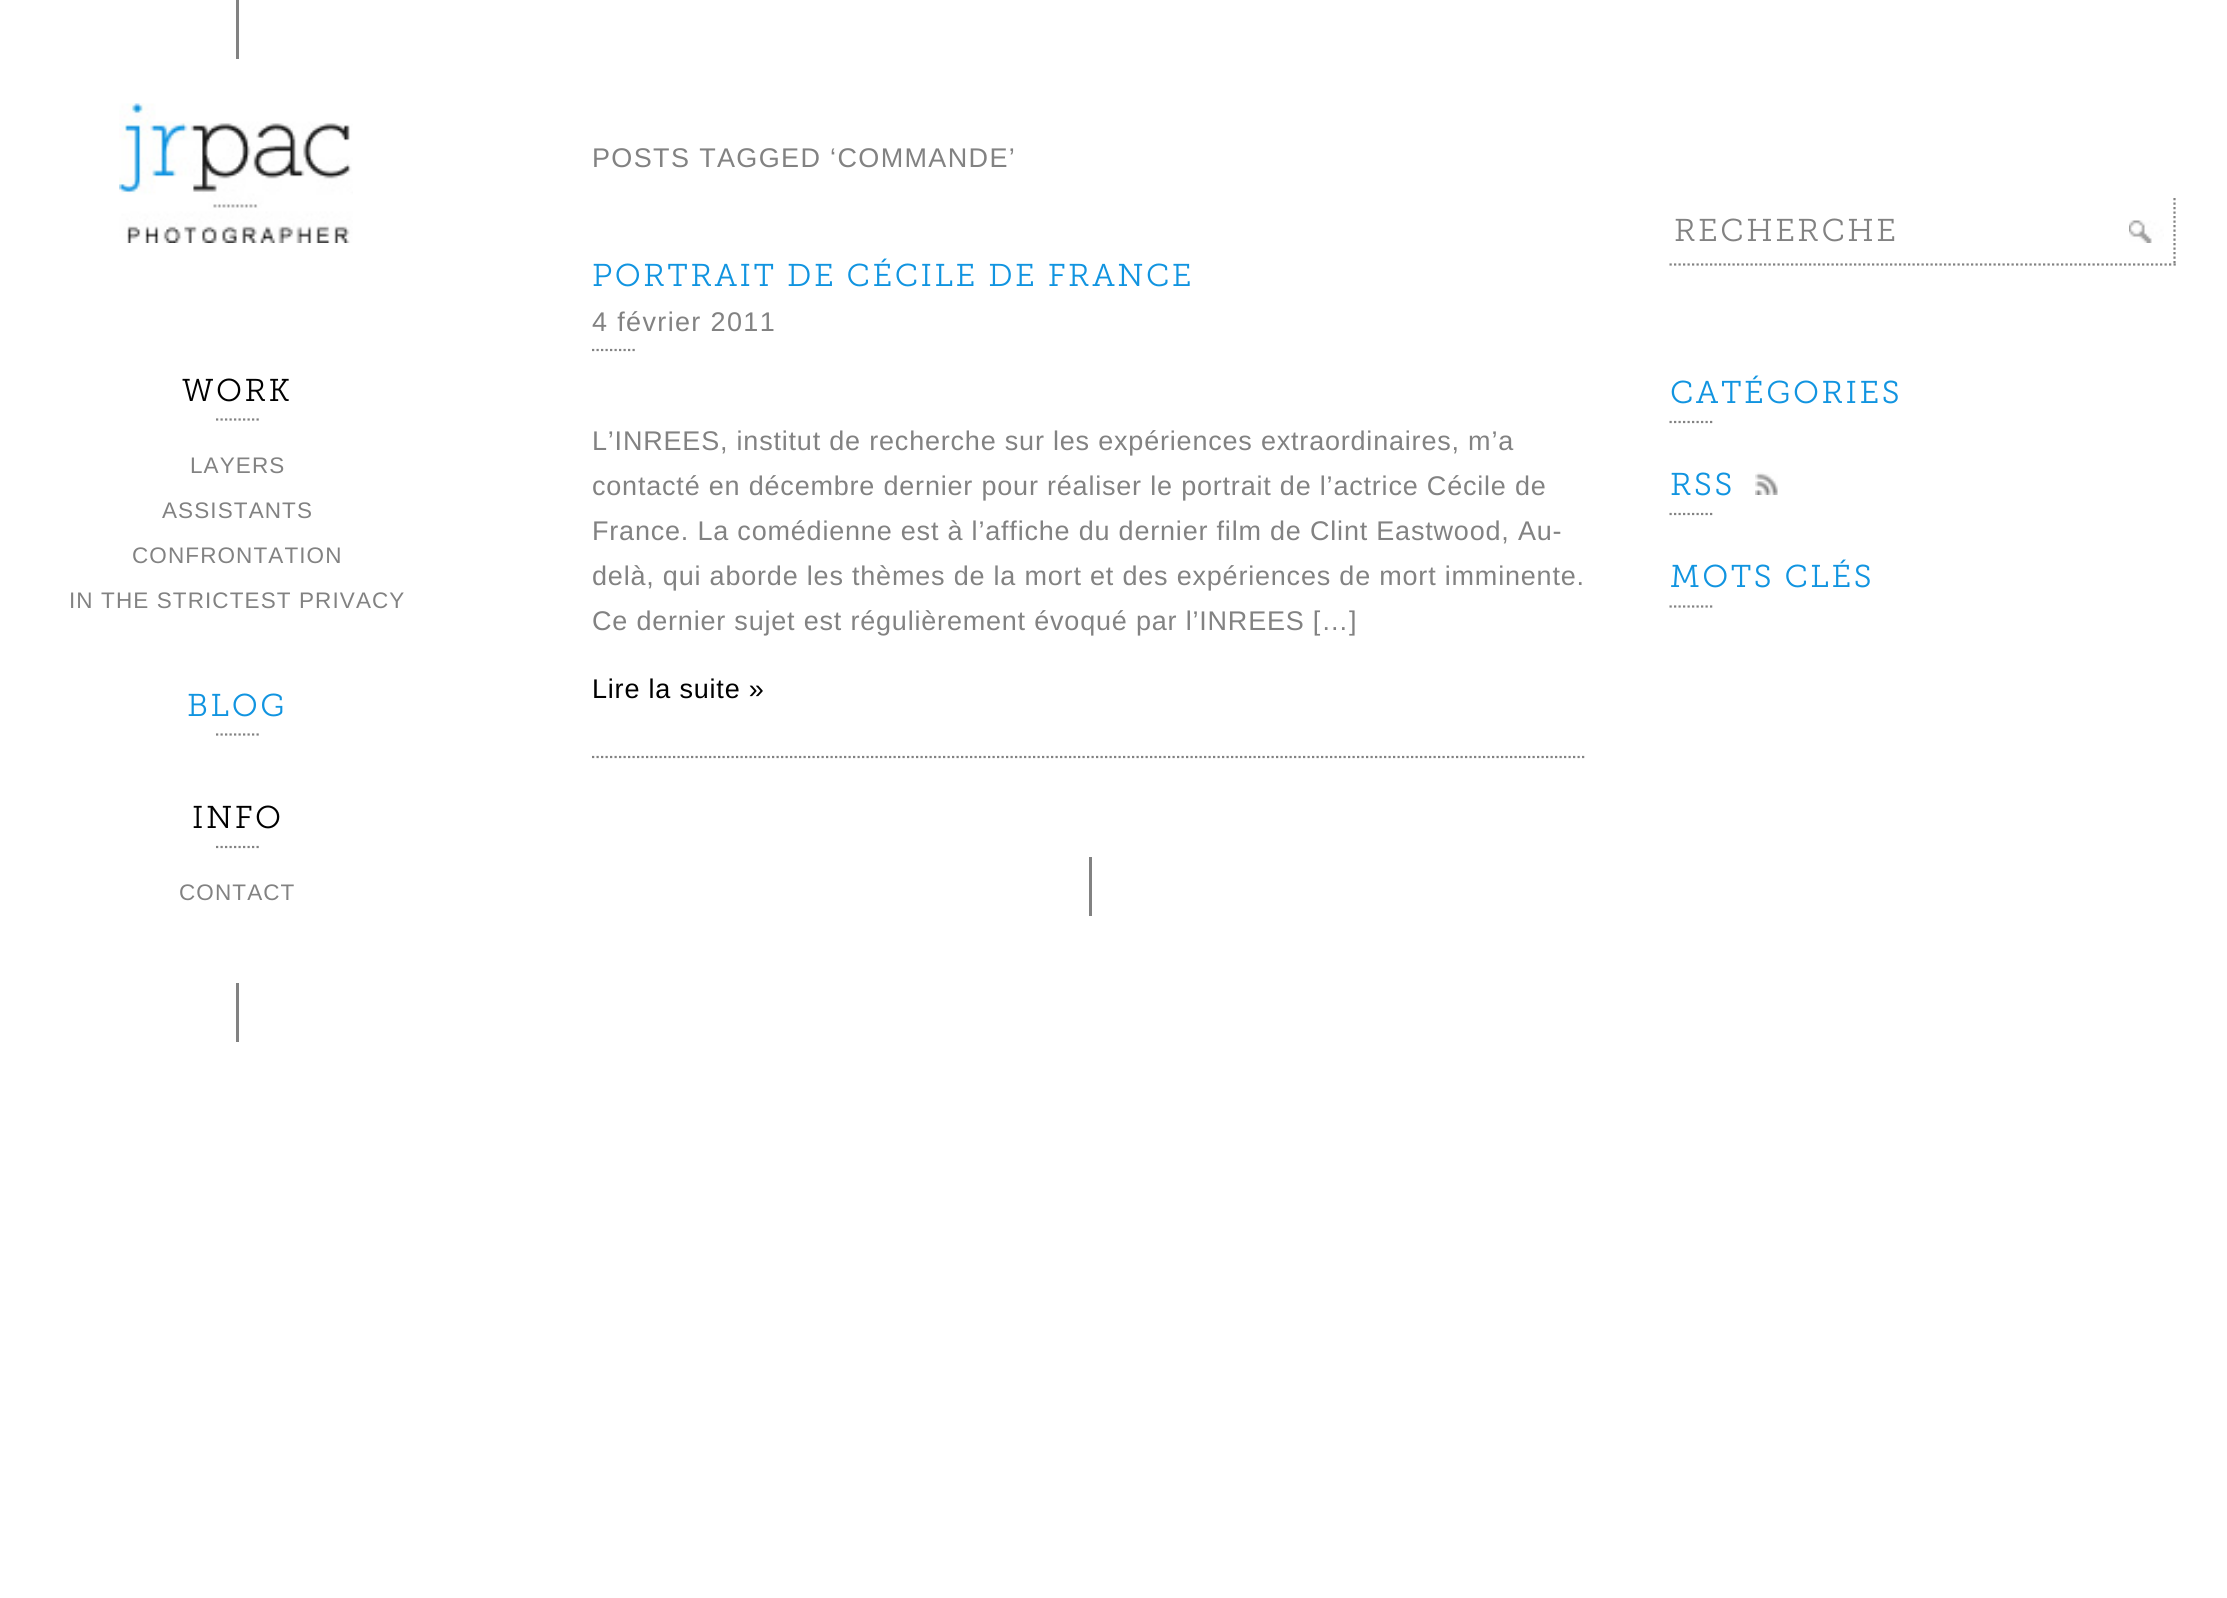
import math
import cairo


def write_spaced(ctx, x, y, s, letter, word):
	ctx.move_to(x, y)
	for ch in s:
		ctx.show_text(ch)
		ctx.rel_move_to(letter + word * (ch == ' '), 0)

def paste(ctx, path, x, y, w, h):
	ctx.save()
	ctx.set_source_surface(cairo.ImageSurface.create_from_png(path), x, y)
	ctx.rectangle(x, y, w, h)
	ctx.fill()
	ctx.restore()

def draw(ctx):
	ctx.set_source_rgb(1, 1, 1)
	ctx.paint()
	ctx.set_source_rgb(0.51, 0.51, 0.51)
	ctx.rectangle(236, 0, 3, 59)
	ctx.fill()
	paste(ctx, 'media/1.png', 119, 103, 234, 140)
	ctx.select_font_face('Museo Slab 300 Light')
	ctx.set_font_size(31.5)
	ctx.set_source_rgb(0, 0, 0)
	write_spaced(ctx, 182, 401, 'WORK', 2.5, 0)
	ctx.new_path()
	ctx.move_to(216, 419.5)
	ctx.line_to(261, 419.5)
	ctx.set_source_rgb(0.51, 0.51, 0.51)
	ctx.set_line_width(2.2)
	ctx.set_dash([2.25, 2.25])
	ctx.stroke()
	ctx.select_font_face('Liberation Sans')
	ctx.set_font_size(22.5)
	for x, y, s in [
		(190, 473, 'LAYERS'),
		(162, 518, 'ASSISTANTS'),
		(132, 563, 'CONFRONTATION'),
		(69, 608, 'IN THE STRICTEST PRIVACY'),
	]:
		write_spaced(ctx, x, y, s, 1.1, 0)
	ctx.select_font_face('Museo Slab 300 Light')
	ctx.set_font_size(31.5)
	ctx.set_source_rgb(0.067, 0.58, 0.878)
	write_spaced(ctx, 187, 716, 'BLOG', 2.5, 0)
	ctx.new_path()
	ctx.move_to(216, 734.5)
	ctx.line_to(261, 734.5)
	ctx.set_source_rgb(0.51, 0.51, 0.51)
	ctx.stroke()
	ctx.set_source_rgb(0, 0, 0)
	write_spaced(ctx, 192, 828, 'INFO', 2.5, 0)
	ctx.new_path()
	ctx.move_to(216, 847)
	ctx.line_to(261, 847)
	ctx.set_source_rgb(0.51, 0.51, 0.51)
	ctx.stroke()
	ctx.select_font_face('Liberation Sans')
	ctx.set_font_size(22.5)
	write_spaced(ctx, 179, 900, 'CONTACT', 1.1, 0)
	ctx.rectangle(236, 983, 3, 59)
	ctx.fill()
	ctx.set_font_size(27)
	write_spaced(ctx, 592, 167, 'POSTS TAGGED ‘COMMANDE’', 1.35, 0)
	ctx.select_font_face('Museo Slab 300 Light')
	ctx.set_font_size(31.5)
	ctx.set_source_rgb(0.067, 0.58, 0.878)
	write_spaced(ctx, 592, 286, 'PORTRAIT DE CÉCILE DE FRANCE', 2.5, 0)
	ctx.select_font_face('Liberation Sans')
	ctx.set_font_size(27)
	ctx.set_source_rgb(0.51, 0.51, 0.51)
	write_spaced(ctx, 592, 331, '4 février 2011', 1.35, 0)
	ctx.new_path()
	ctx.move_to(592, 350)
	ctx.line_to(637, 350)
	ctx.stroke()
	for x, y, s in [
		(592, 450, 'L’INREES, institut de recherche sur les expériences extraordinaires, m’a'),
		(592, 495, 'contacté en décembre dernier pour réaliser le portrait de l’actrice Cécile de'),
		(592, 540, 'France. La comédienne est à l’affiche du dernier film de Clint Eastwood, Au-'),
		(592, 585, 'delà, qui aborde les thèmes de la mort et des expériences de mort imminente.'),
		(592, 630, 'Ce dernier sujet est régulièrement évoqué par l’INREES […]'),
	]:
		write_spaced(ctx, x, y, s, 0.8, 0)
	ctx.set_source_rgb(0, 0, 0)
	write_spaced(ctx, 592, 698, 'Lire la suite »', 0.8, 0)
	ctx.set_source_rgb(0.51, 0.51, 0.51)
	ctx.rectangle(1089, 857, 3, 59)
	ctx.fill()
	ctx.new_path()
	ctx.move_to(592, 757)
	ctx.line_to(1586, 757)
	ctx.stroke()
	paste(ctx, 'media/2.png', 2129, 220, 35, 23)
	ctx.new_path()
	ctx.move_to(2174.5, 198)
	ctx.line_to(2174.5, 265.5)
	ctx.stroke()
	ctx.new_path()
	ctx.move_to(1669.5, 264.5)
	ctx.line_to(2176, 264.5)
	ctx.stroke()
	ctx.select_font_face('Museo Slab 300 Light')
	ctx.set_font_size(31.5)
	write_spaced(ctx, 1674, 241, 'RECHERCHE', 2.5, 0)
	ctx.set_source_rgb(0.067, 0.58, 0.878)
	write_spaced(ctx, 1670, 403, 'CATÉGORIES', 2.5, 0)
	ctx.new_path()
	ctx.move_to(1669.5, 422)
	ctx.line_to(1714.5, 422)
	ctx.set_source_rgb(0.51, 0.51, 0.51)
	ctx.stroke()
	paste(ctx, 'media/3.png', 1755, 472, 23, 23)
	ctx.set_source_rgb(0.067, 0.58, 0.878)
	write_spaced(ctx, 1670, 495, 'RSS', 2.5, 0)
	ctx.new_path()
	ctx.move_to(1669.5, 514)
	ctx.line_to(1714.5, 514)
	ctx.set_source_rgb(0.51, 0.51, 0.51)
	ctx.stroke()
	ctx.set_source_rgb(0.067, 0.58, 0.878)
	write_spaced(ctx, 1670, 587, 'MOTS CLÉS', 2.5, 0)
	ctx.new_path()
	ctx.move_to(1669.5, 606.5)
	ctx.line_to(1714.5, 606.5)
	ctx.set_source_rgb(0.51, 0.51, 0.51)
	ctx.stroke()


surface = cairo.ImageSurface(cairo.FORMAT_RGB24, 2227, 1598)
ctx = cairo.Context(surface)
options = cairo.FontOptions()
options.set_hint_metrics(cairo.HINT_METRICS_OFF)
options.set_hint_style(cairo.HINT_STYLE_NONE)
ctx.set_font_options(options)
ctx.set_miter_limit(4)
draw(ctx)
surface.write_to_png('image.png')
